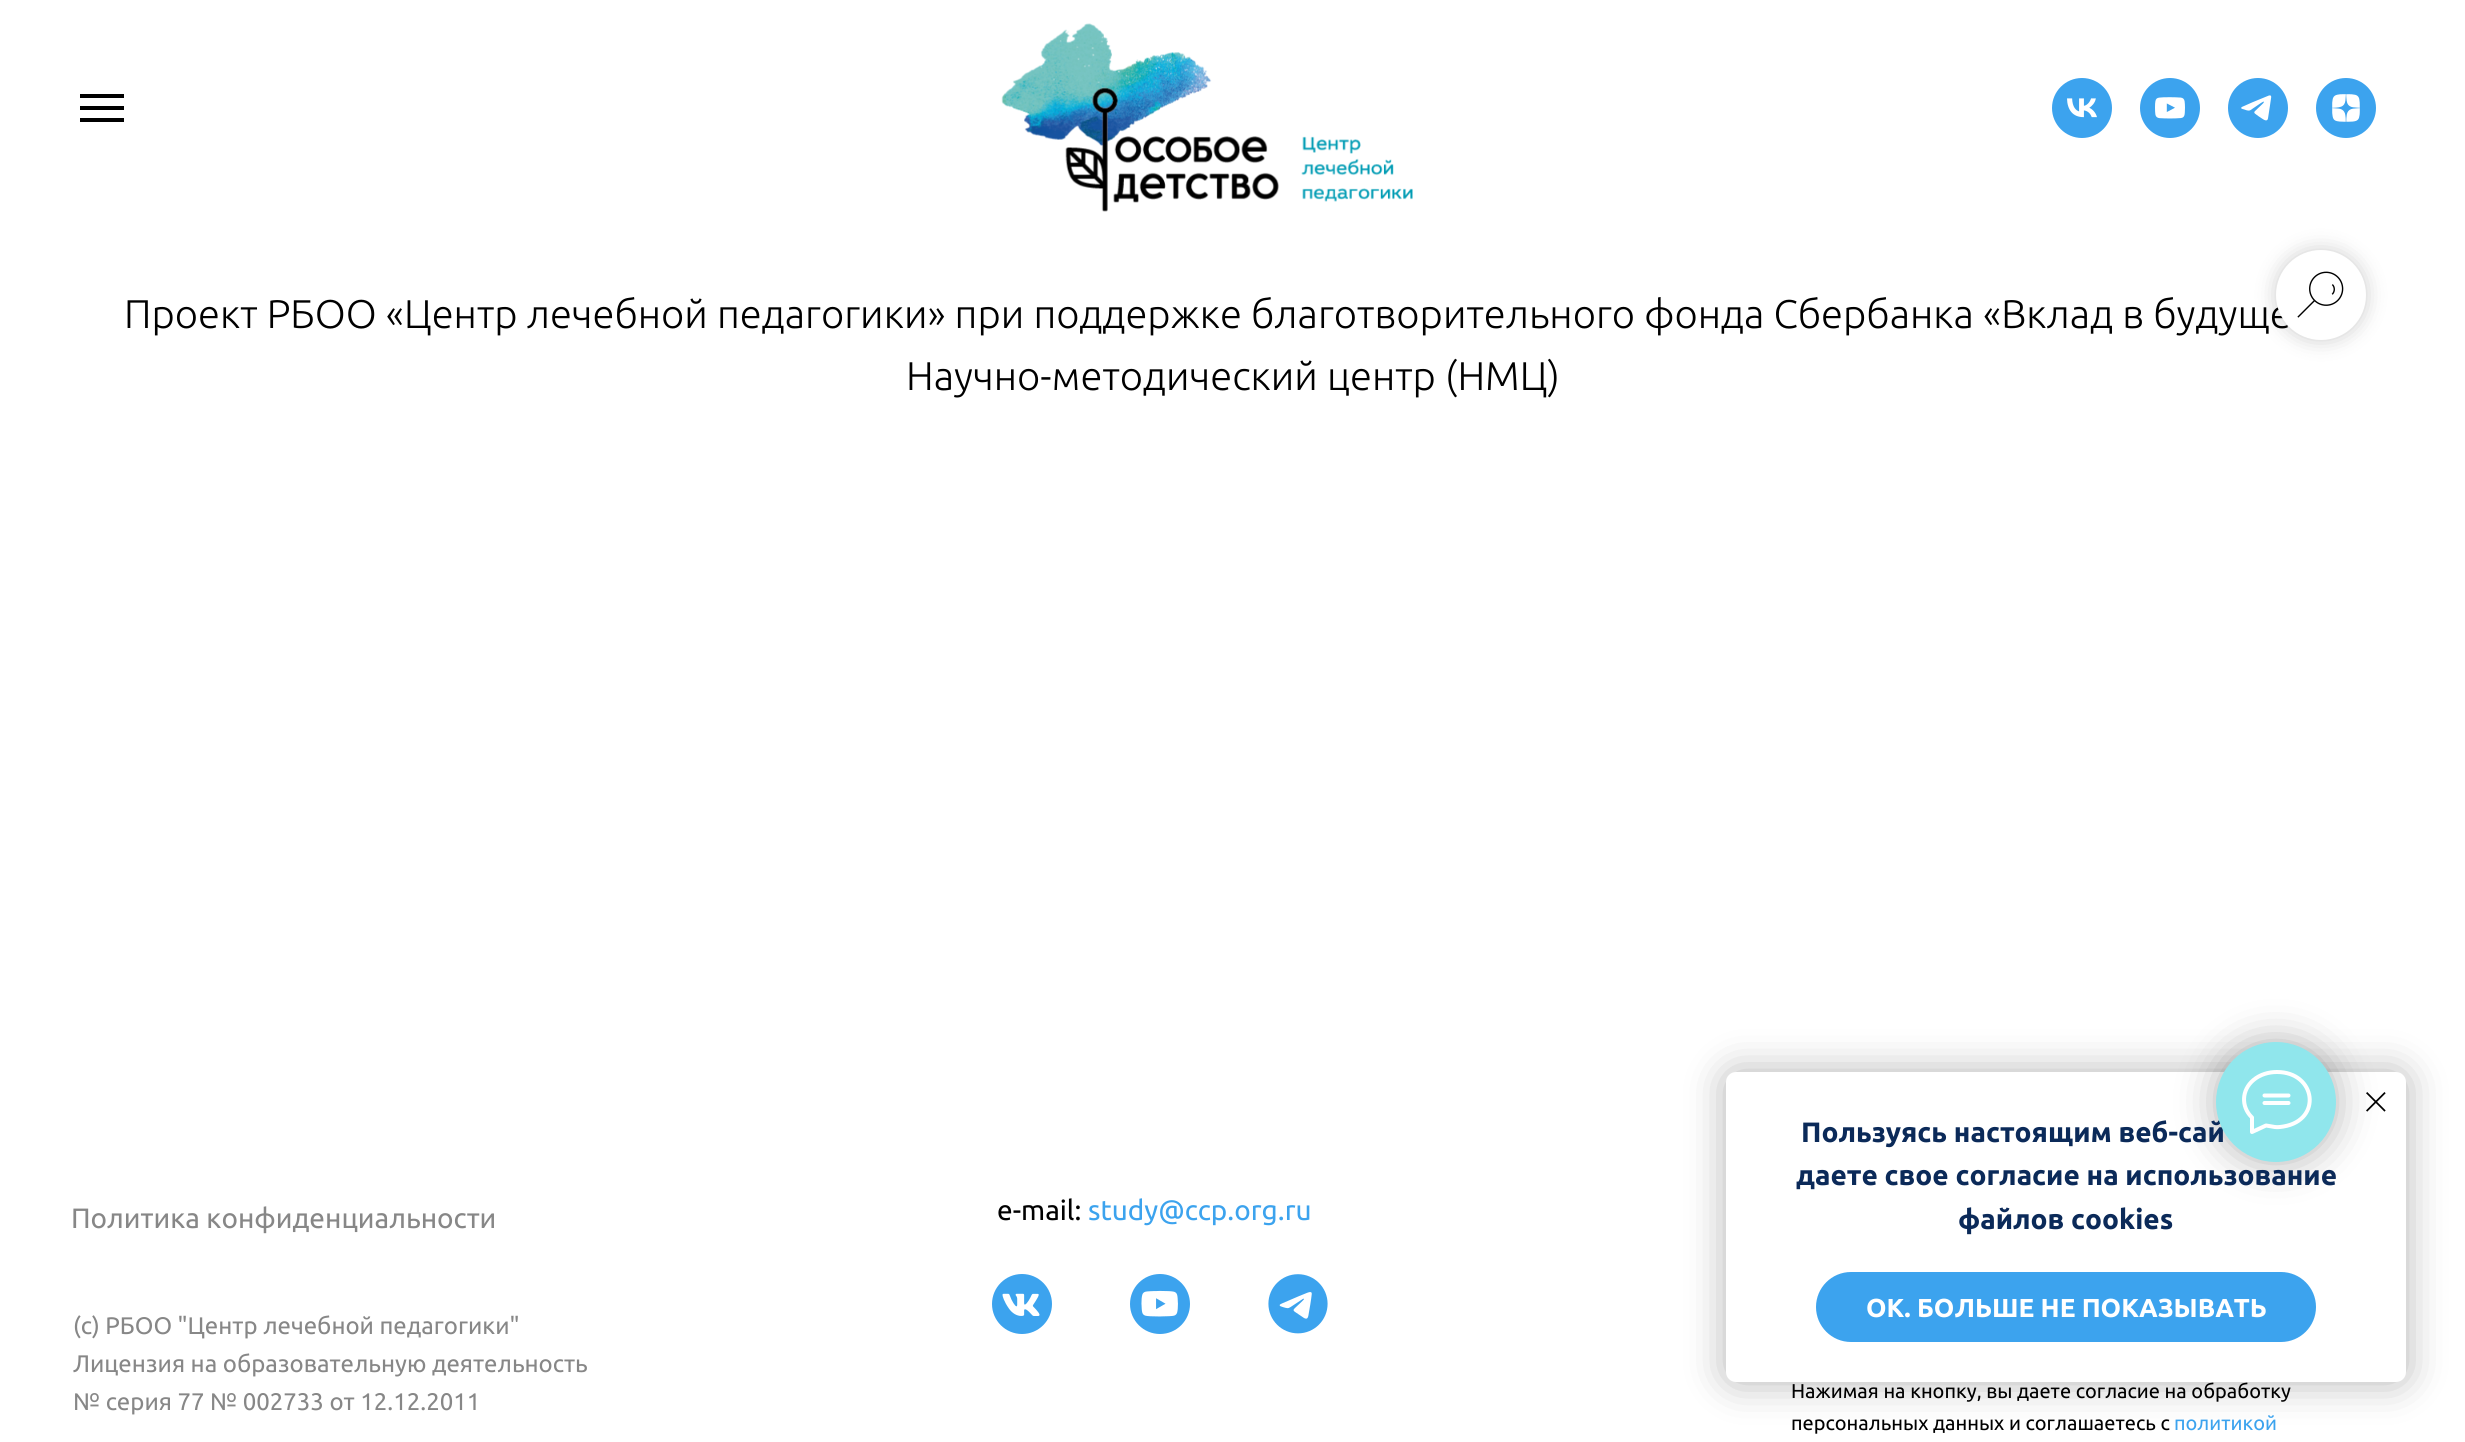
import math
import cairo


def round_path(ctx, x, y, w, h, r):
	ctx.new_sub_path()
	for i, (u, v) in enumerate([(x + w - r, y + h - r), (x + r, y + h - r), (x + r, y + r), (x + w - r, y + r)]):
		ctx.arc(u, v, r, i * math.pi / 2, (i + 1) * math.pi / 2)
	ctx.close_path()

def blur_box(ctx, x, y, w, h, r, blur, alpha):
	ctx.push_group_with_content(cairo.CONTENT_ALPHA)
	ctx.set_operator(cairo.OPERATOR_SOURCE)
	for i in range(15, -16, -2):
		e = blur * i / 6
		if min(w, h) + 2 * e > 0:
			ctx.set_source_rgba(0, 0, 0, alpha * math.erfc((i - 1) / 8.5) / 2)
			round_path(ctx, x - e, y - e, w + 2 * e, h + 2 * e, max(0, min(r + e + blur * .6, min(w, h) / 2 + e)))
			ctx.fill()
	ctx.mask(ctx.pop_group())

def paste(ctx, path, x, y, w, h):
	ctx.save()
	ctx.set_source_surface(cairo.ImageSurface.create_from_png(path), x, y)
	ctx.rectangle(x, y, w, h)
	ctx.fill()
	ctx.restore()

def draw(ctx):
	ctx.set_source_rgb(1, 1, 1)
	ctx.paint()
	ctx.set_source_rgb(0, 0, 0)
	ctx.rectangle(80, 94, 44, 4)
	ctx.rectangle(80, 106, 44, 4)
	ctx.rectangle(80, 118, 44, 4)
	ctx.fill()
	paste(ctx, 'media/1.png', 1001, 23, 412, 189)
	paste(ctx, 'media/2.png', 2052, 78, 60, 60)
	paste(ctx, 'media/3.png', 2140, 78, 60, 60)
	paste(ctx, 'media/4.png', 2228, 78, 60, 60)
	paste(ctx, 'media/5.png', 2316, 78, 60, 60)
	ctx.select_font_face('Ubuntu Light')
	ctx.set_font_size(40)
	ctx.move_to(124, 328)
	ctx.show_text('Проект РБОО «Центр лечебной педагогики» при поддержке благотворительного фонда Сбербанка «Вклад в будуще')
	ctx.move_to(906, 390)
	ctx.show_text('Научно-методический центр (НМЦ)')
	ctx.set_source_rgb(0, 0, 0)
	blur_box(ctx, 2276, 250, 90, 90, 45, 10, 0.2)
	ctx.set_source_rgb(1, 1, 1)
	ctx.arc(2321, 295, 45, 0, 2 * math.pi)
	ctx.fill()
	paste(ctx, 'media/6.png', 2297, 271, 47, 47)
	ctx.set_source_rgb(0, 0, 0)
	blur_box(ctx, 1726, 1072, 680, 310, 10, 20, 0.3)
	ctx.set_source_rgb(1, 1, 1)
	round_path(ctx, 1726, 1072, 680, 310, 10)
	ctx.fill()
	paste(ctx, 'media/7.png', 2366, 1092, 20, 20)
	ctx.set_source_rgb(0, 0, 0)
	blur_box(ctx, 2216, 1042, 120, 120, 60, 20, 0.3)
	ctx.select_font_face('Ubuntu', cairo.FONT_SLANT_NORMAL, cairo.FONT_WEIGHT_BOLD)
	ctx.set_font_size(28)
	ctx.set_source_rgb(0.043, 0.165, 0.349)
	ctx.move_to(1801, 1142)
	ctx.show_text('Пользуясь настоящим веб-сай')
	ctx.set_source_rgb(0.565, 0.902, 0.925)
	ctx.new_path()
	ctx.arc(2276, 1102, 60, 0, 2 * math.pi)
	ctx.fill()
	ctx.new_path()
	ctx.move_to(2264.5, 1095.5)
	ctx.line_to(2288.5, 1095.5)
	ctx.move_to(2264.5, 1103)
	ctx.line_to(2288.5, 1103)
	ctx.move_to(2251.5, 1117)
	ctx.curve_to(2241, 1106.5, 2241.5, 1090, 2253.5, 1080)
	ctx.curve_to(2260, 1074.5, 2268.5, 1072, 2277, 1072)
	ctx.curve_to(2316, 1072, 2322.5, 1120, 2283.5, 1126.5)
	ctx.curve_to(2275, 1128, 2273.5, 1126.5, 2266, 1125.5)
	ctx.line_to(2252, 1132)
	ctx.line_to(2252, 1117.5)
	ctx.close_path()
	ctx.set_source_rgb(1, 1, 1)
	ctx.set_line_width(4)
	ctx.set_line_cap(cairo.LINE_CAP_ROUND)
	ctx.set_line_join(cairo.LINE_JOIN_ROUND)
	ctx.stroke()
	ctx.set_source_rgb(0.043, 0.165, 0.349)
	ctx.move_to(1796, 1185)
	ctx.show_text('даете свое согласие на использование')
	ctx.move_to(1958, 1229)
	ctx.show_text('файлов cookies')
	ctx.set_source_rgb(0.235, 0.639, 0.933)
	round_path(ctx, 1817, 1273, 498, 68, 34)
	ctx.fill_preserve()
	ctx.set_line_width(2)
	ctx.set_line_cap(cairo.LINE_CAP_BUTT)
	ctx.set_line_join(cairo.LINE_JOIN_MITER)
	ctx.stroke()
	ctx.set_font_size(26)
	ctx.set_source_rgb(1, 1, 1)
	ctx.move_to(1866, 1317)
	ctx.show_text('ОК. БОЛЬШЕ НЕ ПОКАЗЫВАТЬ')
	ctx.select_font_face('Ubuntu')
	ctx.set_font_size(28)
	ctx.set_source_rgb(0.529, 0.529, 0.529)
	ctx.move_to(71, 1228)
	ctx.show_text('Политика конфиденциальности')
	ctx.set_source_rgb(0, 0, 0)
	ctx.move_to(997, 1220)
	ctx.show_text('e-mail:')
	ctx.set_source_rgb(0.235, 0.639, 0.933)
	ctx.move_to(1088, 1220)
	ctx.show_text('study@ccp.org.ru')
	paste(ctx, 'media/8.png', 992, 1274, 60, 60)
	paste(ctx, 'media/9.png', 1130, 1274, 60, 60)
	paste(ctx, 'media/10.png', 1268, 1274, 60, 60)
	ctx.set_font_size(24)
	ctx.set_source_rgb(0.529, 0.529, 0.529)
	for x, y, s in [
		(73, 1334, '(c) РБОО "Центр лечебной педагогики"'),
		(73, 1372, 'Лицензия на образовательную деятельность'),
		(73, 1410, '№ серия 77 № 002733 от 12.12.2011'),
	]:
		ctx.move_to(x, y)
		ctx.show_text(s)
	ctx.set_font_size(20)
	ctx.set_source_rgb(0, 0, 0)
	ctx.move_to(1791, 1398)
	ctx.show_text('Нажимая на кнопку, вы даете согласие на обработку')
	ctx.move_to(1791, 1430)
	ctx.show_text('персональных данных и соглашаетесь c')
	ctx.set_source_rgb(0.235, 0.639, 0.933)
	ctx.move_to(2174, 1430)
	ctx.show_text('политикой')


surface = cairo.ImageSurface(cairo.FORMAT_RGB24, 2465, 1442)
ctx = cairo.Context(surface)
options = cairo.FontOptions()
options.set_hint_metrics(cairo.HINT_METRICS_OFF)
options.set_hint_style(cairo.HINT_STYLE_NONE)
ctx.set_font_options(options)
ctx.set_miter_limit(4)
draw(ctx)
surface.write_to_png('image.png')
